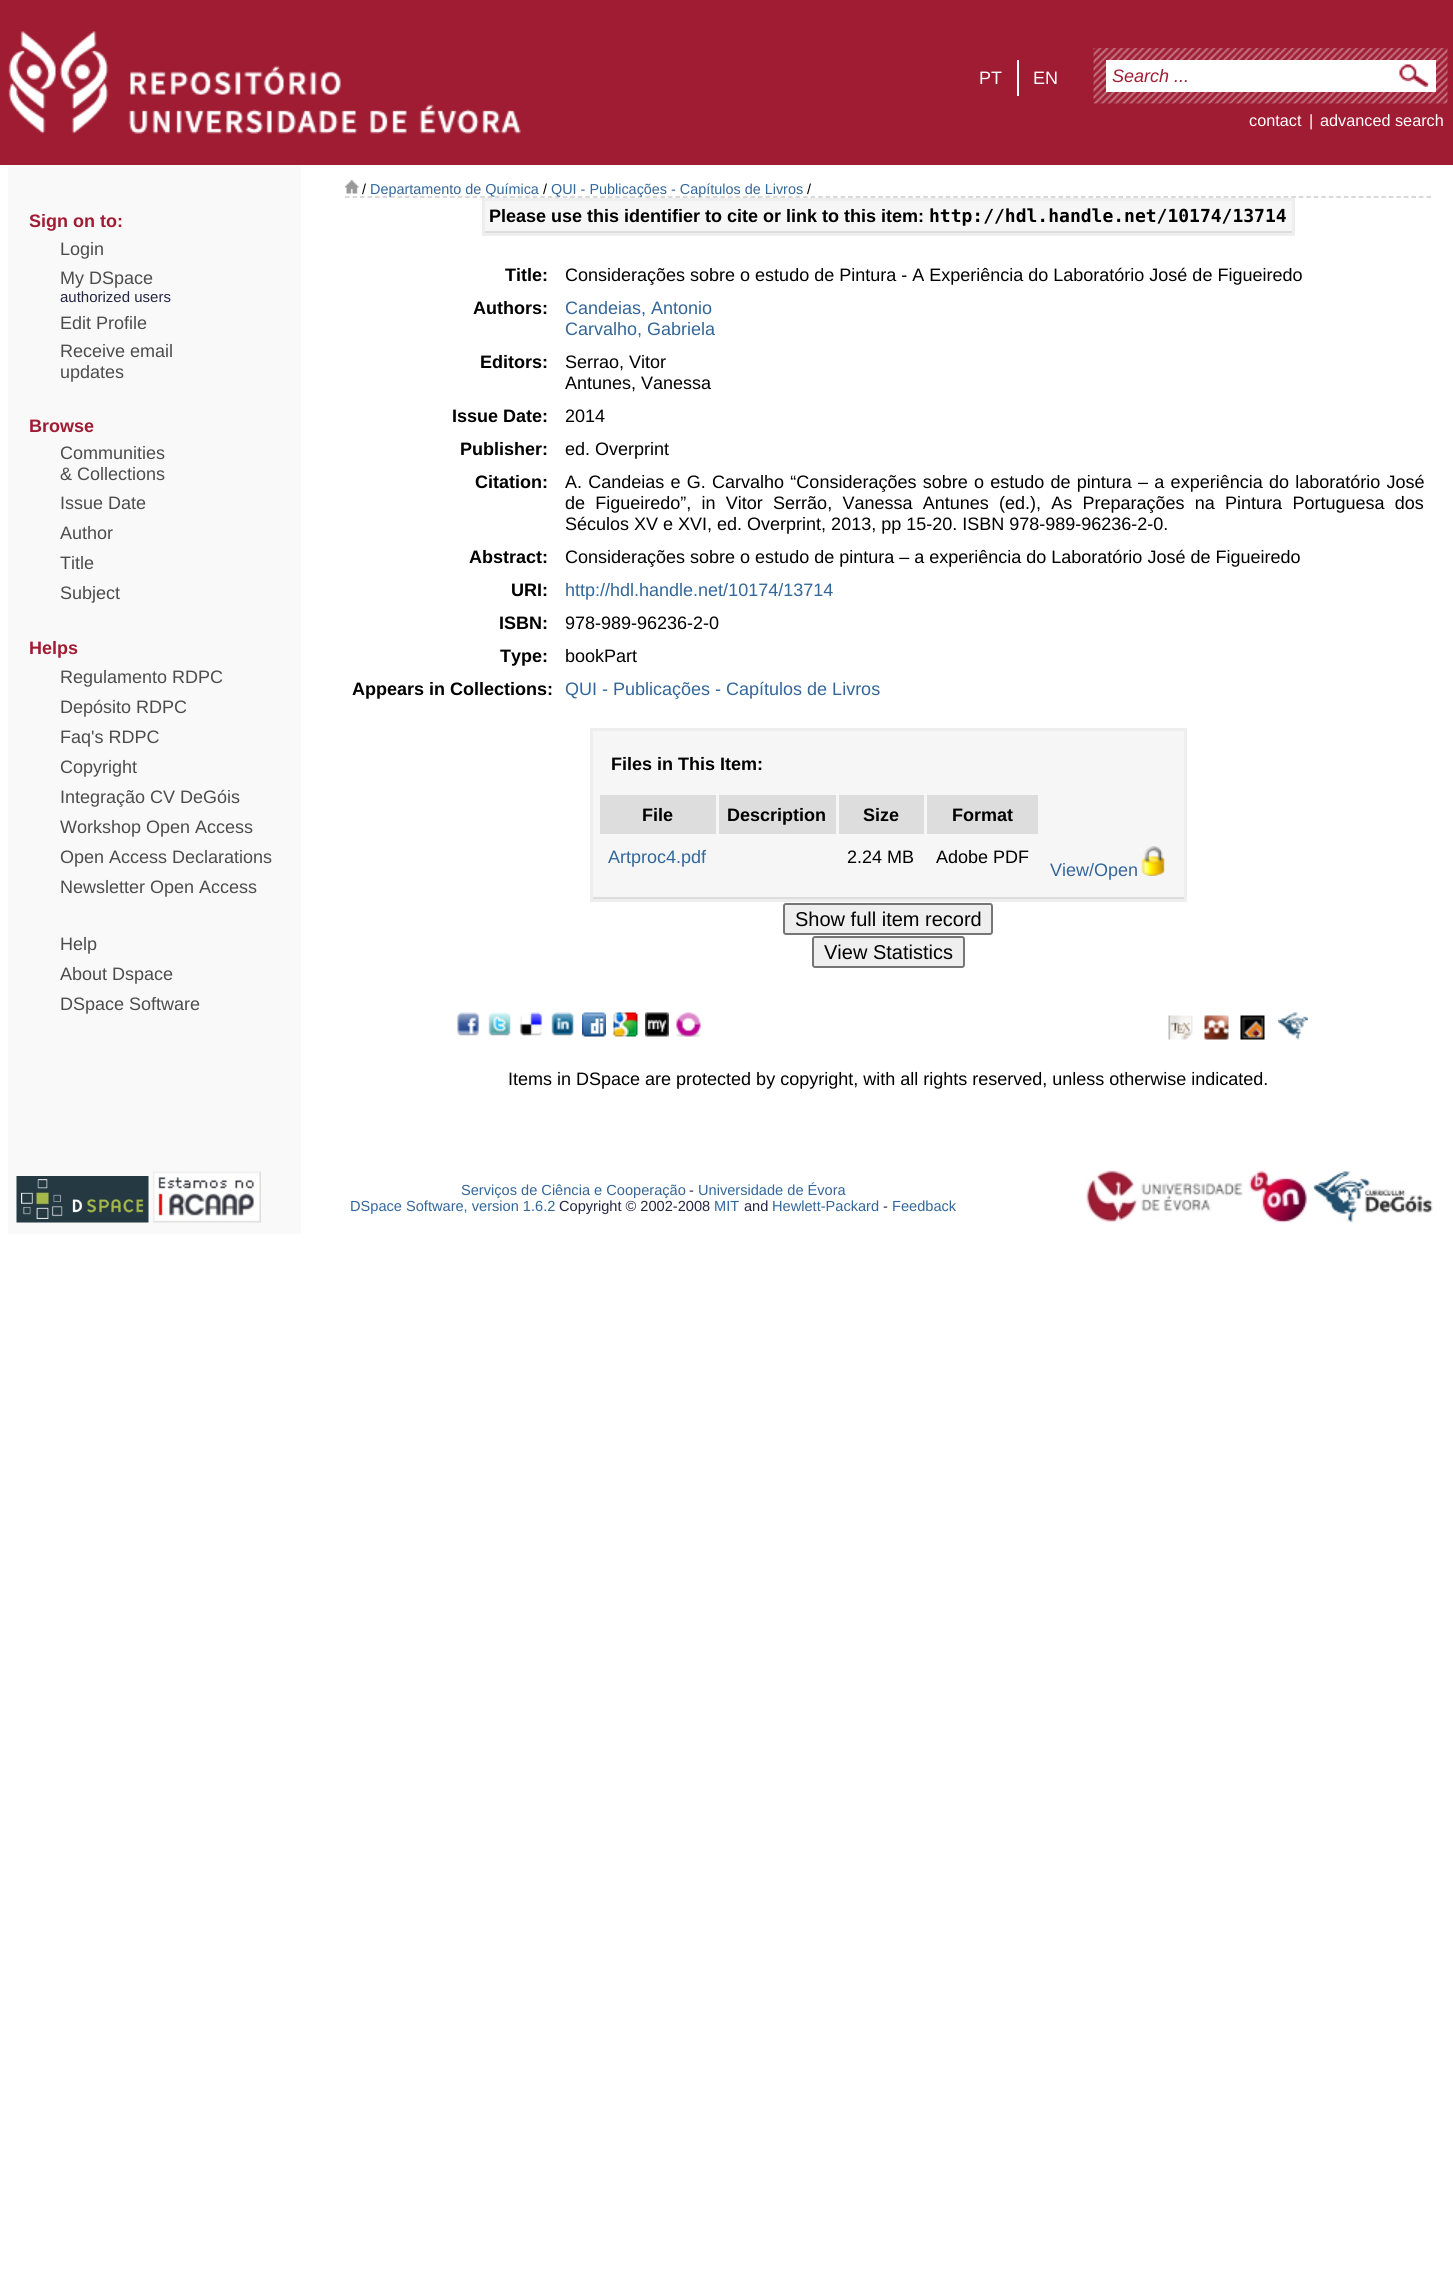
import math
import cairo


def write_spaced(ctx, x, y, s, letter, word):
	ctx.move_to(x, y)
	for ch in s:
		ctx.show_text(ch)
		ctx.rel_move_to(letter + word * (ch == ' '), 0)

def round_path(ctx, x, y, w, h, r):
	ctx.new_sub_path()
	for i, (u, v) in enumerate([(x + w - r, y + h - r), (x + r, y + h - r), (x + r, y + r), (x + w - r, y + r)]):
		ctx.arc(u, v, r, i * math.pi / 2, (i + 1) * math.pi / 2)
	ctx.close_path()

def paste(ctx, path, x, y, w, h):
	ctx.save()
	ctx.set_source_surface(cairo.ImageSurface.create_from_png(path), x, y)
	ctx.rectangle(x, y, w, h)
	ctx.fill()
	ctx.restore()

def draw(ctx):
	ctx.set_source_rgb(1, 1, 1)
	ctx.paint()
	ctx.set_source_rgb(0.624, 0.11, 0.2)
	ctx.rectangle(0, 0, 1453, 165)
	ctx.fill()
	paste(ctx, 'media/1.png', 8, 31, 513, 103)
	ctx.select_font_face('Liberation Sans')
	ctx.set_font_size(18)
	ctx.set_source_rgb(1, 1, 1)
	ctx.move_to(979, 84)
	ctx.show_text('PT')
	ctx.rectangle(1017, 60, 2, 36)
	ctx.fill()
	ctx.move_to(1033, 84)
	ctx.show_text('EN')
	paste(ctx, 'media/2.png', 1093, 48, 355, 56)
	ctx.rectangle(1106, 60, 330, 32)
	ctx.fill()
	paste(ctx, 'media/3.png', 1399, 64, 30, 23)
	ctx.select_font_face('Liberation Sans', cairo.FONT_SLANT_ITALIC)
	ctx.set_source_rgb(0.624, 0.11, 0.2)
	ctx.move_to(1112, 82)
	ctx.show_text('Search ...')
	ctx.select_font_face('Liberation Sans')
	ctx.set_font_size(16.25)
	ctx.set_source_rgb(1, 1, 1)
	for x, y, s in [
		(1249, 126, 'contact'),
		(1309, 126, '|'),
		(1320, 126, 'advanced search'),
	]:
		ctx.move_to(x, y)
		ctx.show_text(s)
	ctx.set_source_rgb(0.976, 0.976, 0.976)
	ctx.rectangle(8, 165, 293, 1069)
	ctx.fill()
	ctx.select_font_face('Liberation Sans', cairo.FONT_SLANT_NORMAL, cairo.FONT_WEIGHT_BOLD)
	ctx.set_font_size(18)
	ctx.set_source_rgb(0.624, 0.11, 0.2)
	ctx.move_to(29, 227)
	ctx.show_text('Sign on to:')
	ctx.select_font_face('Liberation Sans')
	ctx.set_source_rgb(0.298, 0.298, 0.298)
	ctx.move_to(60, 255)
	ctx.show_text('Login')
	ctx.move_to(60, 284)
	ctx.show_text('My DSpace')
	ctx.set_font_size(15)
	ctx.set_source_rgb(0.145, 0.149, 0.271)
	ctx.move_to(60, 302)
	ctx.show_text('authorized users')
	ctx.set_font_size(18)
	ctx.set_source_rgb(0.298, 0.298, 0.298)
	for x, y, s in [
		(60, 329, 'Edit Profile'),
		(60, 357, 'Receive email'),
		(60, 378, 'updates'),
	]:
		ctx.move_to(x, y)
		ctx.show_text(s)
	ctx.select_font_face('Liberation Sans', cairo.FONT_SLANT_NORMAL, cairo.FONT_WEIGHT_BOLD)
	ctx.set_source_rgb(0.624, 0.11, 0.2)
	ctx.move_to(29, 432)
	ctx.show_text('Browse')
	ctx.select_font_face('Liberation Sans')
	ctx.set_source_rgb(0.298, 0.298, 0.298)
	for x, y, s in [
		(60, 459, 'Communities'),
		(60, 480, '& Collections'),
		(60, 509, 'Issue Date'),
		(60, 539, 'Author'),
		(60, 569, 'Title'),
		(60, 599, 'Subject'),
	]:
		ctx.move_to(x, y)
		ctx.show_text(s)
	ctx.select_font_face('Liberation Sans', cairo.FONT_SLANT_NORMAL, cairo.FONT_WEIGHT_BOLD)
	ctx.set_source_rgb(0.624, 0.11, 0.2)
	ctx.move_to(29, 654)
	ctx.show_text('Helps')
	ctx.select_font_face('Liberation Sans')
	ctx.set_source_rgb(0.298, 0.298, 0.298)
	for x, y, s in [
		(60, 683, 'Regulamento RDPC'),
		(60, 713, 'Depósito RDPC'),
		(60, 743, 'Faq\'s RDPC'),
		(60, 773, 'Copyright'),
		(60, 803, 'Integração CV DeGóis'),
		(60, 833, 'Workshop Open Access'),
		(60, 863, 'Open Access Declarations'),
		(60, 893, 'Newsletter Open Access'),
		(60, 950, 'Help'),
		(60, 980, 'About Dspace'),
		(60, 1010, 'DSpace Software'),
	]:
		ctx.move_to(x, y)
		ctx.show_text(s)
	ctx.new_path()
	ctx.move_to(345, 197)
	ctx.line_to(1432.5, 197)
	ctx.set_source_rgb(0.8, 0.8, 0.8)
	ctx.set_line_width(1.5)
	ctx.set_dash([4.5, 3.01])
	ctx.stroke()
	paste(ctx, 'media/4.png', 345, 180, 14, 14)
	ctx.set_font_size(14.4)
	ctx.set_source_rgb(0, 0, 0)
	ctx.move_to(362, 194)
	ctx.show_text('/')
	ctx.set_source_rgb(0.2, 0.4, 0.6)
	ctx.move_to(370, 194)
	ctx.show_text('Departamento de Química')
	ctx.set_source_rgb(0, 0, 0)
	ctx.move_to(543, 194)
	ctx.show_text('/')
	ctx.set_source_rgb(0.2, 0.4, 0.6)
	ctx.move_to(551, 194)
	ctx.show_text('QUI - Publicações - Capítulos de Livros')
	ctx.set_source_rgb(0, 0, 0)
	ctx.move_to(807, 194)
	ctx.show_text('/')
	ctx.set_source_rgb(0.933, 0.933, 0.933)
	ctx.rectangle(482, 198, 813, 38)
	ctx.fill()
	ctx.set_source_rgb(0.961, 0.961, 0.961)
	ctx.rectangle(485, 201, 807, 30)
	ctx.fill()
	ctx.set_source_rgb(0.867, 0.867, 0.867)
	ctx.rectangle(485, 231, 807, 2)
	ctx.fill()
	ctx.select_font_face('Liberation Sans', cairo.FONT_SLANT_NORMAL, cairo.FONT_WEIGHT_BOLD)
	ctx.set_font_size(18)
	ctx.set_source_rgb(0, 0, 0)
	ctx.move_to(489, 222)
	ctx.show_text('Please use this identifier to cite or link to this item:')
	ctx.select_font_face('DejaVu Sans Mono', cairo.FONT_SLANT_NORMAL, cairo.FONT_WEIGHT_BOLD)
	ctx.move_to(929, 222)
	ctx.show_text('http://hdl.handle.net/10174/13714')
	ctx.select_font_face('Liberation Sans', cairo.FONT_SLANT_NORMAL, cairo.FONT_WEIGHT_BOLD)
	ctx.move_to(505, 281)
	ctx.show_text('Title:')
	ctx.select_font_face('Liberation Sans')
	ctx.move_to(565, 281)
	ctx.show_text('Considerações sobre o estudo de Pintura - A Experiência do Laboratório José de Figueiredo')
	ctx.select_font_face('Liberation Sans', cairo.FONT_SLANT_NORMAL, cairo.FONT_WEIGHT_BOLD)
	ctx.move_to(473, 314)
	ctx.show_text('Authors:')
	ctx.select_font_face('Liberation Sans')
	ctx.set_source_rgb(0.2, 0.4, 0.6)
	ctx.move_to(565, 314)
	ctx.show_text('Candeias, Antonio')
	ctx.move_to(565, 335)
	ctx.show_text('Carvalho, Gabriela')
	ctx.select_font_face('Liberation Sans', cairo.FONT_SLANT_NORMAL, cairo.FONT_WEIGHT_BOLD)
	ctx.set_source_rgb(0, 0, 0)
	ctx.move_to(480, 368)
	ctx.show_text('Editors:')
	ctx.select_font_face('Liberation Sans')
	ctx.move_to(565, 368)
	ctx.show_text('Serrao, Vitor')
	ctx.move_to(565, 389)
	ctx.show_text('Antunes, Vanessa')
	ctx.select_font_face('Liberation Sans', cairo.FONT_SLANT_NORMAL, cairo.FONT_WEIGHT_BOLD)
	ctx.move_to(452, 422)
	ctx.show_text('Issue Date:')
	ctx.select_font_face('Liberation Sans')
	ctx.move_to(565, 422)
	ctx.show_text('2014')
	ctx.select_font_face('Liberation Sans', cairo.FONT_SLANT_NORMAL, cairo.FONT_WEIGHT_BOLD)
	ctx.move_to(460, 455)
	ctx.show_text('Publisher:')
	ctx.select_font_face('Liberation Sans')
	ctx.move_to(565, 455)
	ctx.show_text('ed. Overprint')
	ctx.select_font_face('Liberation Sans', cairo.FONT_SLANT_NORMAL, cairo.FONT_WEIGHT_BOLD)
	ctx.move_to(475, 488)
	ctx.show_text('Citation:')
	ctx.select_font_face('Liberation Sans')
	write_spaced(ctx, 565, 488, 'A. Candeias e G. Carvalho “Considerações sobre o estudo de pintura – a experiência do laboratório José', 0, 1.25)
	write_spaced(ctx, 565, 509, 'de Figueiredo”, in Vitor Serrão, Vanessa Antunes (ed.), As Preparações na Pintura Portuguesa dos', 0, 5.25)
	ctx.move_to(565, 530)
	ctx.show_text('Séculos XV e XVI, ed. Overprint, 2013, pp 15-20. ISBN 978-989-96236-2-0.')
	ctx.select_font_face('Liberation Sans', cairo.FONT_SLANT_NORMAL, cairo.FONT_WEIGHT_BOLD)
	ctx.move_to(469, 563)
	ctx.show_text('Abstract:')
	ctx.select_font_face('Liberation Sans')
	ctx.move_to(565, 563)
	ctx.show_text('Considerações sobre o estudo de pintura – a experiência do Laboratório José de Figueiredo')
	ctx.select_font_face('Liberation Sans', cairo.FONT_SLANT_NORMAL, cairo.FONT_WEIGHT_BOLD)
	ctx.move_to(511, 596)
	ctx.show_text('URI:')
	ctx.select_font_face('Liberation Sans')
	ctx.set_source_rgb(0.2, 0.4, 0.6)
	ctx.move_to(565, 596)
	ctx.show_text('http://hdl.handle.net/10174/13714')
	ctx.select_font_face('Liberation Sans', cairo.FONT_SLANT_NORMAL, cairo.FONT_WEIGHT_BOLD)
	ctx.set_source_rgb(0, 0, 0)
	ctx.move_to(499, 629)
	ctx.show_text('ISBN:')
	ctx.select_font_face('Liberation Sans')
	ctx.move_to(565, 629)
	ctx.show_text('978-989-96236-2-0')
	ctx.select_font_face('Liberation Sans', cairo.FONT_SLANT_NORMAL, cairo.FONT_WEIGHT_BOLD)
	ctx.move_to(500, 662)
	ctx.show_text('Type:')
	ctx.select_font_face('Liberation Sans')
	ctx.move_to(565, 662)
	ctx.show_text('bookPart')
	ctx.select_font_face('Liberation Sans', cairo.FONT_SLANT_NORMAL, cairo.FONT_WEIGHT_BOLD)
	ctx.move_to(352, 695)
	ctx.show_text('Appears in Collections:')
	ctx.select_font_face('Liberation Sans')
	ctx.set_source_rgb(0.2, 0.4, 0.6)
	ctx.move_to(565, 695)
	ctx.show_text('QUI - Publicações - Capítulos de Livros')
	ctx.set_source_rgb(0.933, 0.933, 0.933)
	ctx.rectangle(590, 728, 597, 174)
	ctx.fill()
	ctx.set_source_rgb(0.961, 0.961, 0.961)
	ctx.rectangle(593, 731, 591, 166)
	ctx.fill()
	ctx.set_source_rgb(0.867, 0.867, 0.867)
	ctx.rectangle(593, 897, 591, 2)
	ctx.fill()
	ctx.select_font_face('Liberation Sans', cairo.FONT_SLANT_NORMAL, cairo.FONT_WEIGHT_BOLD)
	ctx.set_source_rgb(0, 0, 0)
	ctx.move_to(611, 770)
	ctx.show_text('Files in This Item:')
	ctx.set_source_rgb(0.867, 0.867, 0.867)
	ctx.rectangle(600, 795, 116, 39)
	ctx.fill()
	ctx.set_source_rgb(0, 0, 0)
	ctx.move_to(642, 821)
	ctx.show_text('File')
	ctx.set_source_rgb(0.867, 0.867, 0.867)
	ctx.rectangle(719, 795, 117, 39)
	ctx.fill()
	ctx.set_source_rgb(0, 0, 0)
	ctx.move_to(727, 821)
	ctx.show_text('Description')
	ctx.set_source_rgb(0.867, 0.867, 0.867)
	ctx.rectangle(839, 795, 85, 39)
	ctx.fill()
	ctx.set_source_rgb(0, 0, 0)
	ctx.move_to(863, 821)
	ctx.show_text('Size')
	ctx.set_source_rgb(0.867, 0.867, 0.867)
	ctx.rectangle(927, 795, 111, 39)
	ctx.fill()
	ctx.set_source_rgb(0, 0, 0)
	ctx.move_to(952, 821)
	ctx.show_text('Format')
	ctx.select_font_face('Liberation Sans')
	ctx.set_source_rgb(0.2, 0.4, 0.6)
	ctx.move_to(608, 863)
	ctx.show_text('Artproc4.pdf')
	ctx.set_source_rgb(0, 0, 0)
	ctx.move_to(847, 863)
	ctx.show_text('2.24 MB')
	ctx.move_to(936, 863)
	ctx.show_text('Adobe PDF')
	ctx.set_source_rgb(0.2, 0.4, 0.6)
	ctx.move_to(1050, 876)
	ctx.show_text('View/Open')
	paste(ctx, 'media/5.png', 1140, 846, 25, 30)
	ctx.set_source_rgb(0.937, 0.937, 0.937)
	round_path(ctx, 784, 904, 208, 30, 2)
	ctx.fill_preserve()
	ctx.set_source_rgb(0.463, 0.463, 0.463)
	ctx.set_line_width(2)
	ctx.set_dash([])
	ctx.stroke()
	ctx.set_font_size(20)
	ctx.set_source_rgb(0, 0, 0)
	ctx.move_to(795, 926)
	ctx.show_text('Show full item record')
	ctx.set_source_rgb(0.937, 0.937, 0.937)
	round_path(ctx, 813, 937, 151, 30, 2)
	ctx.fill_preserve()
	ctx.set_source_rgb(0.463, 0.463, 0.463)
	ctx.stroke()
	ctx.set_source_rgb(0, 0, 0)
	ctx.move_to(824, 959)
	ctx.show_text('View Statistics')
	paste(ctx, 'media/6.png', 456, 1012, 24, 24)
	paste(ctx, 'media/7.png', 488, 1012, 23, 24)
	paste(ctx, 'media/8.png', 519, 1012, 24, 24)
	paste(ctx, 'media/9.png', 551, 1012, 24, 24)
	paste(ctx, 'media/10.png', 582, 1012, 24, 25)
	paste(ctx, 'media/11.png', 613, 1012, 25, 25)
	paste(ctx, 'media/12.png', 645, 1012, 24, 25)
	paste(ctx, 'media/13.png', 676, 1012, 25, 25)
	paste(ctx, 'media/14.png', 1168, 1015, 25, 25)
	paste(ctx, 'media/15.png', 1204, 1015, 25, 25)
	paste(ctx, 'media/16.png', 1240, 1015, 25, 25)
	paste(ctx, 'media/17.png', 1278, 1012, 30, 28)
	ctx.set_font_size(18)
	ctx.move_to(508, 1085)
	ctx.show_text('Items in DSpace are protected by copyright, with all rights reserved, unless otherwise indicated.')
	paste(ctx, 'media/18.png', 16, 1176, 133, 47)
	paste(ctx, 'media/19.png', 153, 1171, 108, 52)
	ctx.set_font_size(14.6)
	ctx.set_source_rgb(0.2, 0.4, 0.6)
	ctx.move_to(461, 1195)
	ctx.show_text('Serviços de Ciência e Cooperação')
	ctx.set_source_rgb(0.145, 0.149, 0.271)
	ctx.move_to(689, 1195)
	ctx.show_text('-')
	ctx.set_source_rgb(0.2, 0.4, 0.6)
	ctx.move_to(698, 1195)
	ctx.show_text('Universidade de Évora')
	ctx.move_to(350, 1211)
	ctx.show_text('DSpace Software, version 1.6.2')
	ctx.set_source_rgb(0.145, 0.149, 0.271)
	ctx.move_to(559, 1211)
	ctx.show_text('Copyright © 2002-2008')
	ctx.set_source_rgb(0.2, 0.4, 0.6)
	ctx.move_to(714, 1211)
	ctx.show_text('MIT')
	ctx.set_source_rgb(0.145, 0.149, 0.271)
	ctx.move_to(744, 1211)
	ctx.show_text('and')
	ctx.set_source_rgb(0.2, 0.4, 0.6)
	ctx.move_to(772, 1211)
	ctx.show_text('Hewlett-Packard')
	ctx.set_source_rgb(0.145, 0.149, 0.271)
	ctx.move_to(883, 1211)
	ctx.show_text('-')
	ctx.set_source_rgb(0.2, 0.4, 0.6)
	ctx.move_to(892, 1211)
	ctx.show_text('Feedback')
	paste(ctx, 'media/20.png', 1086, 1170, 157, 53)
	paste(ctx, 'media/21.png', 1248, 1170, 60, 53)
	paste(ctx, 'media/22.png', 1313, 1171, 120, 52)


surface = cairo.ImageSurface(cairo.FORMAT_RGB24, 1453, 2275)
ctx = cairo.Context(surface)
options = cairo.FontOptions()
options.set_hint_metrics(cairo.HINT_METRICS_OFF)
options.set_hint_style(cairo.HINT_STYLE_NONE)
ctx.set_font_options(options)
ctx.set_miter_limit(4)
draw(ctx)
surface.write_to_png('image.png')
